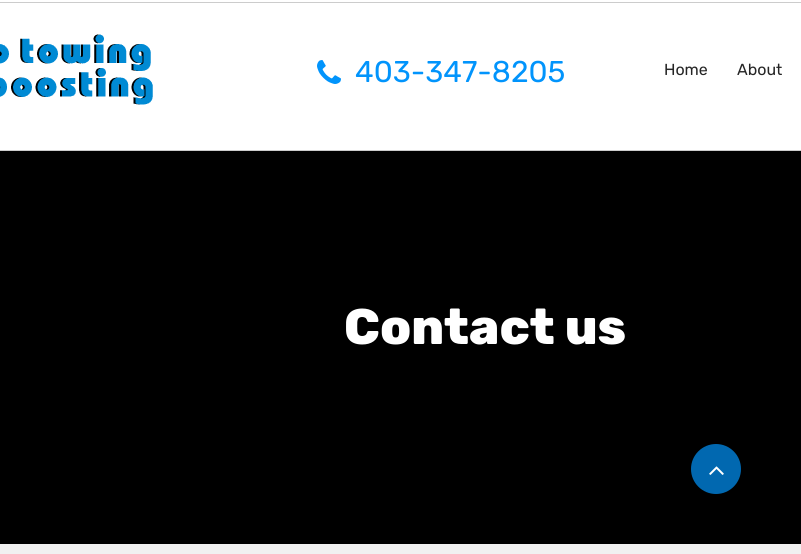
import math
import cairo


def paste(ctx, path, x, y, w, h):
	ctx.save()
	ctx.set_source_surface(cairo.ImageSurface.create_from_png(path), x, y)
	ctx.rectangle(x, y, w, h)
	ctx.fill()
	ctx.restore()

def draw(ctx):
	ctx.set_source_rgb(1, 1, 1)
	ctx.paint()
	ctx.set_source_rgb(0.8, 0.8, 0.8)
	ctx.rectangle(0, 2, 801, 1)
	ctx.fill()
	paste(ctx, 'media/1.png', 0, 34, 153, 71)
	paste(ctx, 'media/2.png', 317, 60, 24, 24)
	ctx.select_font_face('Rubik')
	ctx.set_font_size(30)
	ctx.set_source_rgb(0.004, 0.58, 0.988)
	ctx.move_to(355, 82)
	ctx.show_text('403-347-8205')
	ctx.set_font_size(16)
	ctx.set_source_rgb(0.145, 0.145, 0.145)
	ctx.move_to(664, 75)
	ctx.show_text('Home')
	ctx.move_to(737, 75)
	ctx.show_text('About')
	ctx.set_source_rgb(0.8, 0.8, 0.8)
	ctx.rectangle(0, 150, 801, 1)
	ctx.fill()
	ctx.set_source_rgb(0, 0, 0)
	ctx.rectangle(0, 151, 801, 393)
	ctx.fill()
	ctx.select_font_face('Rubik ExtraBold')
	ctx.set_font_size(50)
	ctx.set_source_rgb(1, 1, 1)
	ctx.move_to(344, 344)
	ctx.show_text('Contact us')
	ctx.set_source_rgb(0.945, 0.945, 0.945)
	ctx.rectangle(0, 544, 801, 10)
	ctx.fill()
	ctx.set_source_rgb(0.004, 0.408, 0.69)
	ctx.arc(716, 469, 25, 0, 2 * math.pi)
	ctx.fill()
	paste(ctx, 'media/3.png', 709, 466, 15, 9)


surface = cairo.ImageSurface(cairo.FORMAT_RGB24, 801, 554)
ctx = cairo.Context(surface)
options = cairo.FontOptions()
options.set_hint_metrics(cairo.HINT_METRICS_OFF)
options.set_hint_style(cairo.HINT_STYLE_NONE)
ctx.set_font_options(options)
ctx.set_miter_limit(4)
draw(ctx)
surface.write_to_png('image.png')
